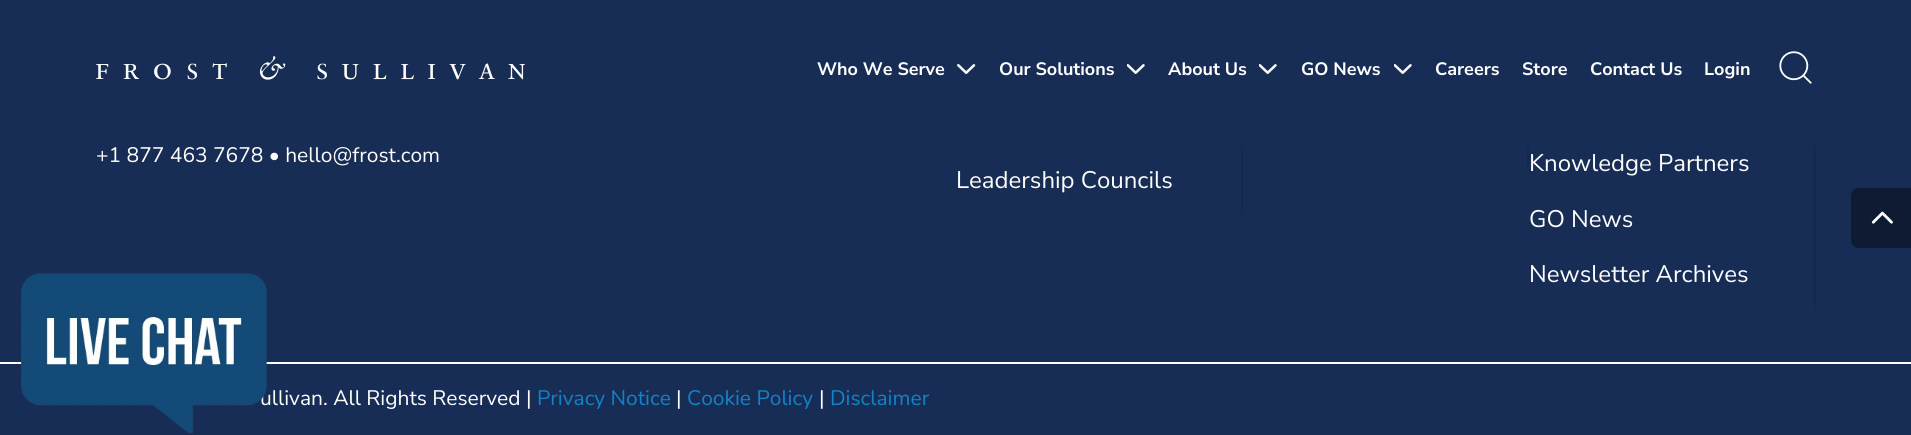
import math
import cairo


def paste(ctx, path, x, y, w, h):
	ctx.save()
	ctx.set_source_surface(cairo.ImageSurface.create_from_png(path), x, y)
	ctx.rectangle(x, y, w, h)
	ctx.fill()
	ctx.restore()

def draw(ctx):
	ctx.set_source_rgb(0.09, 0.176, 0.333)
	ctx.paint()
	paste(ctx, 'media/1.png', 96, 56, 429, 24)
	ctx.select_font_face('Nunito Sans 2 ExtraLight')
	ctx.set_font_size(18)
	ctx.set_source_rgb(1, 1, 1)
	ctx.move_to(817, 75)
	ctx.show_text('Who We Serve')
	paste(ctx, 'media/2.png', 957, 64, 19, 10)
	ctx.move_to(999, 75)
	ctx.show_text('Our Solutions')
	paste(ctx, 'media/3.png', 1127, 64, 18, 10)
	ctx.move_to(1168, 75)
	ctx.show_text('About Us')
	paste(ctx, 'media/3.png', 1259, 64, 18, 10)
	ctx.move_to(1301, 75)
	ctx.show_text('GO News')
	paste(ctx, 'media/3.png', 1394, 64, 18, 10)
	for x, y, s in [
		(1435, 75, 'Careers'),
		(1522, 75, 'Store'),
		(1590, 75, 'Contact Us'),
		(1704, 75, 'Login'),
	]:
		ctx.move_to(x, y)
		ctx.show_text(s)
	paste(ctx, 'media/4.png', 1779, 51, 33, 33)
	ctx.select_font_face('Nunito Sans ExtraLight')
	ctx.set_font_size(21)
	ctx.move_to(96, 162)
	ctx.show_text('+1 877 463 7678 • hello@frost.com')
	ctx.set_source_rgb(0.082, 0.161, 0.302)
	ctx.rectangle(1241, 146, 2, 69)
	ctx.fill()
	ctx.set_font_size(24)
	ctx.set_source_rgb(1, 1, 1)
	ctx.move_to(956, 188)
	ctx.show_text('Leadership Councils')
	ctx.set_source_rgb(0.082, 0.161, 0.302)
	ctx.rectangle(1527, 146, 2, 25)
	ctx.fill()
	ctx.rectangle(1814, 146, 2, 163)
	ctx.fill()
	ctx.set_source_rgb(1, 1, 1)
	for x, y, s in [
		(1529, 171, 'Knowledge Partners'),
		(1529, 227, 'GO News'),
		(1529, 282, 'Newsletter Archives'),
	]:
		ctx.move_to(x, y)
		ctx.show_text(s)
	ctx.rectangle(0, 362, 1911, 2)
	ctx.fill()
	ctx.set_font_size(21)
	ctx.move_to(260, 405)
	ctx.show_text('ullivan. All Rights Reserved |')
	ctx.set_source_rgb(0.071, 0.514, 0.776)
	ctx.move_to(537, 405)
	ctx.show_text('Privacy Notice')
	ctx.set_source_rgb(1, 1, 1)
	ctx.move_to(676, 405)
	ctx.show_text('|')
	ctx.set_source_rgb(0.071, 0.514, 0.776)
	ctx.move_to(687, 405)
	ctx.show_text('Cookie Policy')
	ctx.set_source_rgb(1, 1, 1)
	ctx.move_to(819, 405)
	ctx.show_text('|')
	ctx.set_source_rgb(0.071, 0.514, 0.776)
	ctx.move_to(830, 405)
	ctx.show_text('Disclaimer')
	ctx.set_source_rgb(0.055, 0.106, 0.2)
	ctx.new_path()
	ctx.move_to(1859, 188)
	ctx.line_to(1911, 188)
	ctx.line_to(1911, 248)
	ctx.line_to(1859, 248)
	ctx.curve_to(1854.5, 248, 1851, 244.5, 1851, 240)
	ctx.line_to(1851, 196)
	ctx.curve_to(1851, 191.5, 1854.5, 188, 1859, 188)
	ctx.close_path()
	ctx.fill()
	paste(ctx, 'media/5.png', 1871, 211, 22, 13)
	paste(ctx, 'media/6.png', 21, 273, 246, 161)


surface = cairo.ImageSurface(cairo.FORMAT_RGB24, 1911, 435)
ctx = cairo.Context(surface)
options = cairo.FontOptions()
options.set_hint_metrics(cairo.HINT_METRICS_OFF)
options.set_hint_style(cairo.HINT_STYLE_NONE)
ctx.set_font_options(options)
ctx.set_miter_limit(4)
draw(ctx)
surface.write_to_png('image.png')
